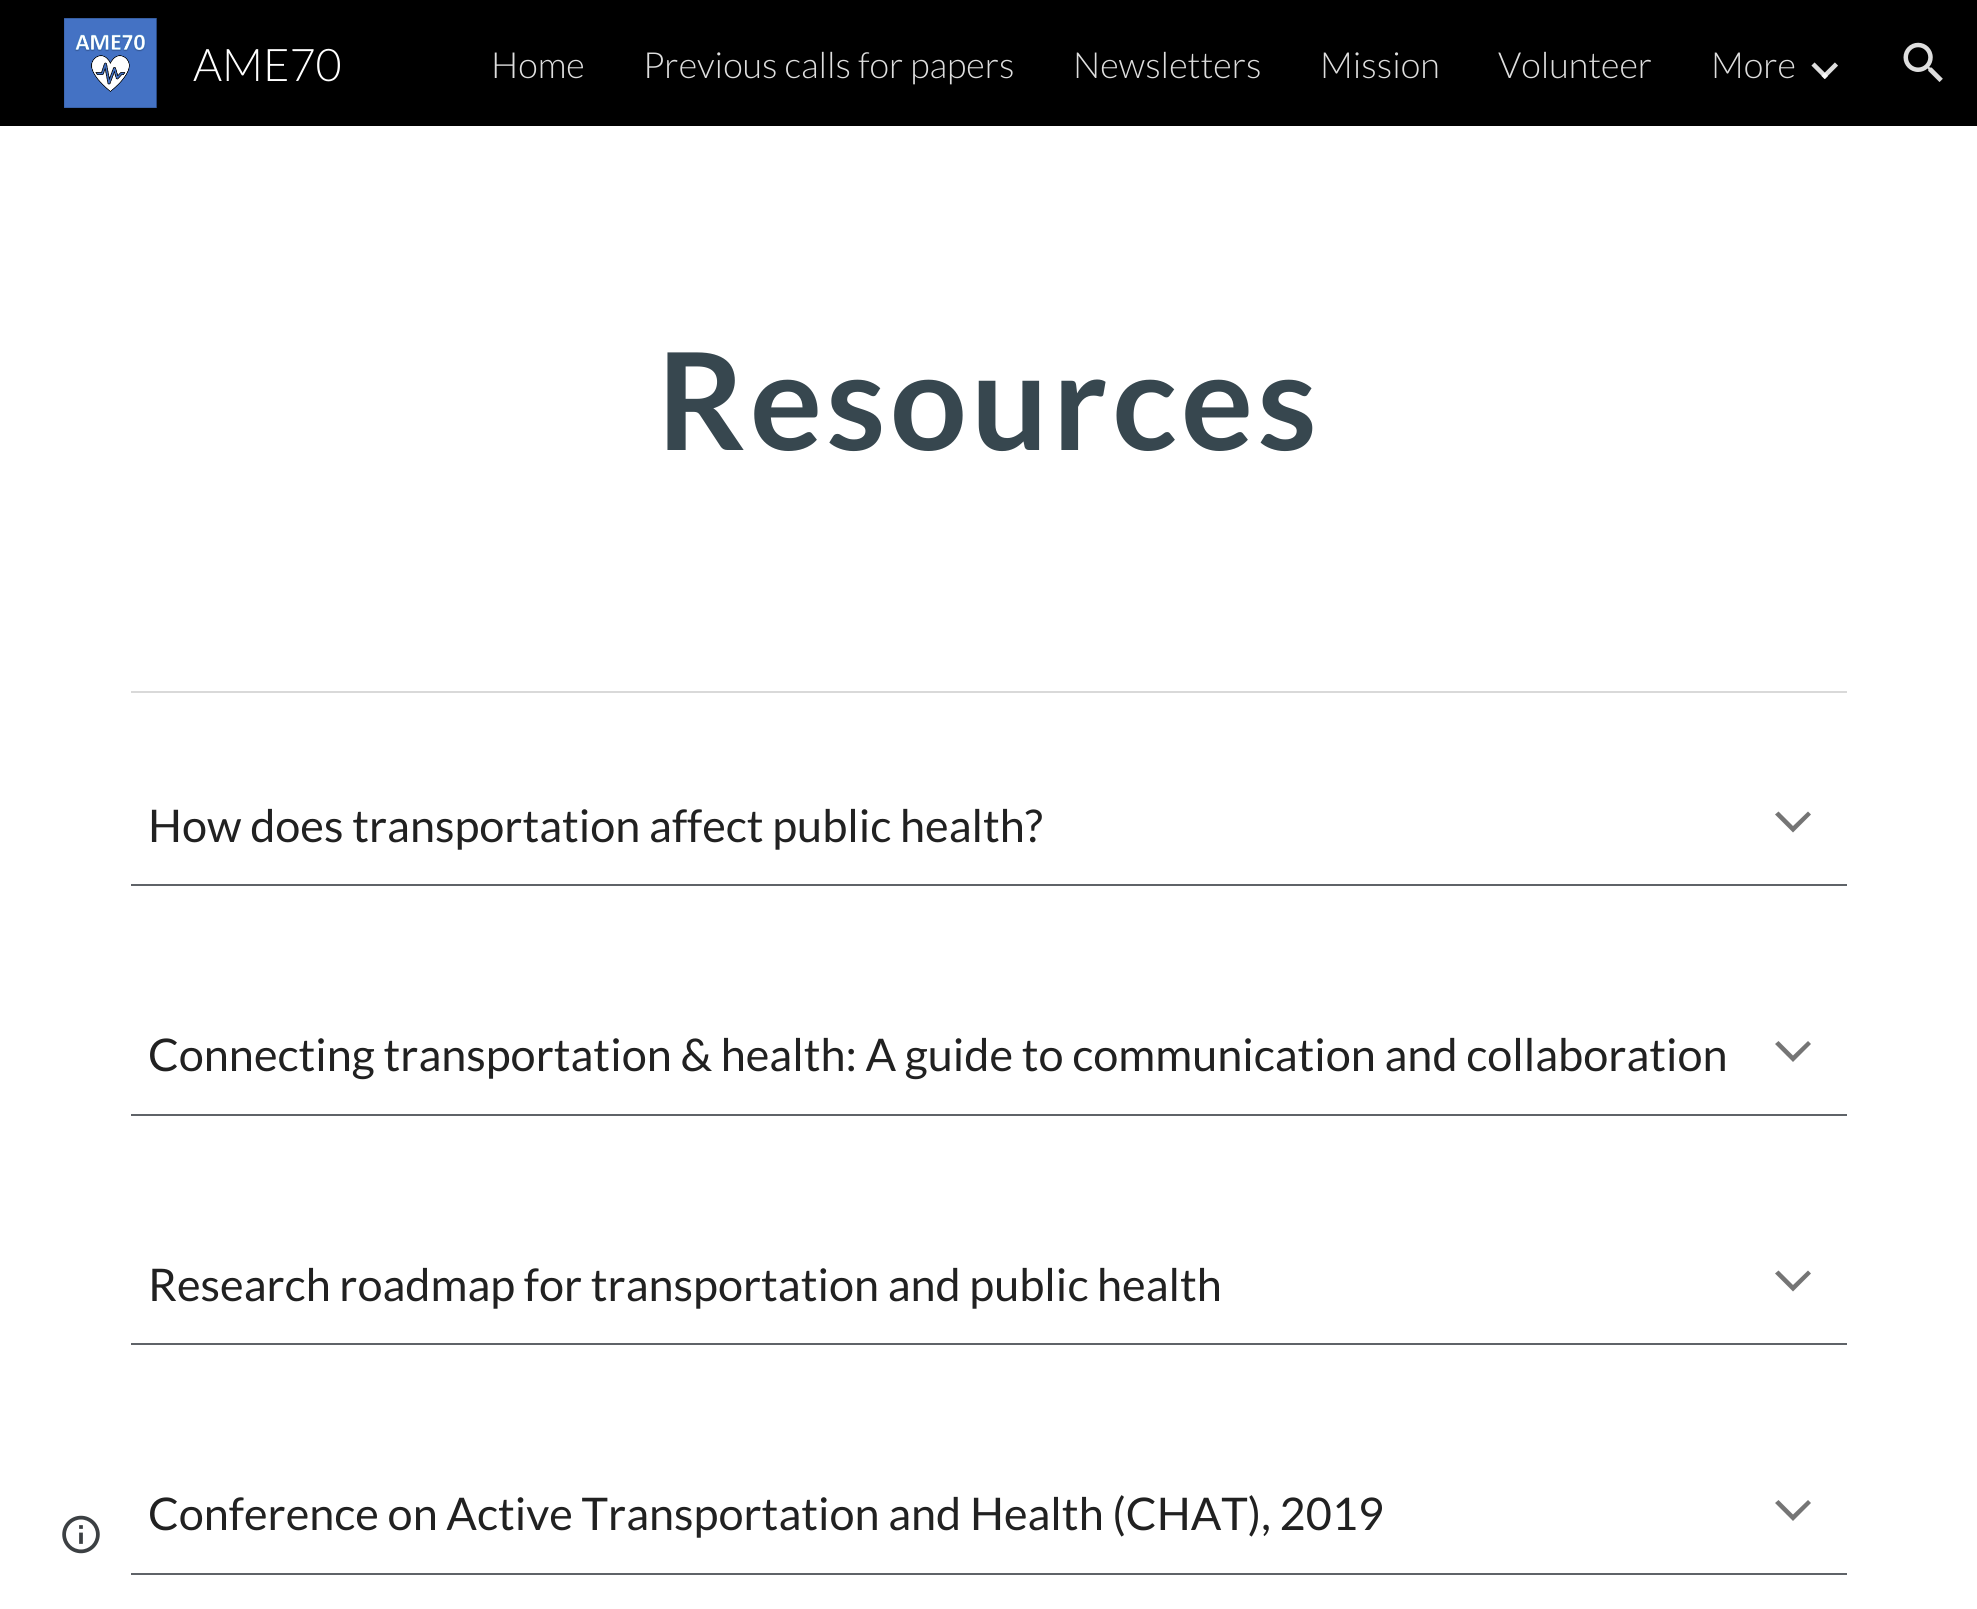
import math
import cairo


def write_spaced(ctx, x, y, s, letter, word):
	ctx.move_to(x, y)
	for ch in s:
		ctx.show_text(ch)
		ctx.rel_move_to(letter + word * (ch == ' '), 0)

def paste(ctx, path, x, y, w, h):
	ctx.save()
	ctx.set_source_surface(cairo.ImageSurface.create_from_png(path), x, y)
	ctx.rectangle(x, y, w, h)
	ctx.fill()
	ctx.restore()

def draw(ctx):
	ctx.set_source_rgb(1, 1, 1)
	ctx.paint()
	ctx.set_source_rgb(0, 0, 0)
	ctx.rectangle(0, 0, 1977, 126)
	ctx.fill()
	paste(ctx, 'media/1.png', 64, 18, 93, 90)
	ctx.select_font_face('Lato Light')
	ctx.set_font_size(45)
	ctx.set_source_rgb(1, 1, 1)
	ctx.move_to(193, 81)
	ctx.show_text('AME70')
	ctx.set_font_size(36)
	ctx.set_source_rgb(0.871, 0.871, 0.871)
	for x, y, s in [
		(491, 78, 'Home'),
		(643, 78, 'Previous calls for papers'),
		(1073, 78, 'Newsletters'),
		(1320, 78, 'Mission'),
		(1498, 78, 'Volunteer'),
		(1711, 78, 'More'),
	]:
		ctx.move_to(x, y)
		ctx.show_text(s)
	ctx.new_path()
	ctx.move_to(1813, 64)
	ctx.line_to(1826.5, 77.5)
	ctx.set_line_width(4.5)
	ctx.stroke()
	ctx.new_path()
	ctx.move_to(1823, 77.5)
	ctx.line_to(1836.5, 64)
	ctx.set_source_rgba(1, 1, 1, 0.87)
	ctx.stroke()
	paste(ctx, 'media/2.png', 1903, 42, 40, 40)
	paste(ctx, 'media/3.png', 62, 1515, 38, 39)
	ctx.select_font_face('Lato', cairo.FONT_SLANT_NORMAL, cairo.FONT_WEIGHT_BOLD)
	ctx.set_font_size(135)
	ctx.set_source_rgb(0.216, 0.278, 0.31)
	write_spaced(ctx, 657, 450, 'Resources', 4.5, 0)
	ctx.set_source_rgb(0.851, 0.851, 0.851)
	ctx.rectangle(131, 691, 1716, 2)
	ctx.fill()
	ctx.set_source_rgb(0.373, 0.388, 0.408)
	ctx.rectangle(131, 884, 1716, 2)
	ctx.fill()
	ctx.select_font_face('Lato')
	ctx.set_font_size(45)
	ctx.set_source_rgb(0.129, 0.129, 0.129)
	ctx.move_to(148, 842)
	ctx.show_text('How does transportation affect public health?')
	ctx.set_source_rgb(0.459, 0.459, 0.459)
	ctx.new_path()
	ctx.move_to(1778.5, 811.5)
	ctx.line_to(1775, 814.5)
	ctx.line_to(1793, 832.5)
	ctx.line_to(1811, 814.5)
	ctx.line_to(1808, 811.5)
	ctx.line_to(1793, 826)
	ctx.fill()
	ctx.set_source_rgb(0.373, 0.388, 0.408)
	ctx.rectangle(131, 1114, 1716, 2)
	ctx.fill()
	ctx.set_source_rgb(0.129, 0.129, 0.129)
	ctx.move_to(148, 1071)
	ctx.show_text('Connecting transportation & health: A guide to communication and collaboration')
	ctx.set_source_rgb(0.459, 0.459, 0.459)
	ctx.new_path()
	ctx.move_to(1778.5, 1041)
	ctx.line_to(1775, 1044)
	ctx.line_to(1793, 1062)
	ctx.line_to(1811, 1044)
	ctx.line_to(1808, 1041)
	ctx.line_to(1793, 1055.5)
	ctx.fill()
	ctx.set_source_rgb(0.373, 0.388, 0.408)
	ctx.rectangle(131, 1343, 1716, 2)
	ctx.fill()
	ctx.set_source_rgb(0.129, 0.129, 0.129)
	ctx.move_to(148, 1301)
	ctx.show_text('Research roadmap for transportation and public health')
	ctx.set_source_rgb(0.459, 0.459, 0.459)
	ctx.new_path()
	ctx.move_to(1778.5, 1270.5)
	ctx.line_to(1775, 1273.5)
	ctx.line_to(1793, 1291.5)
	ctx.line_to(1811, 1273.5)
	ctx.line_to(1808, 1270.5)
	ctx.line_to(1793, 1285)
	ctx.fill()
	ctx.set_source_rgb(0.373, 0.388, 0.408)
	ctx.rectangle(131, 1573, 1716, 2)
	ctx.fill()
	ctx.set_source_rgb(0.129, 0.129, 0.129)
	ctx.move_to(148, 1530)
	ctx.show_text('Conference on Active Transportation and Health (CHAT), 2019')
	ctx.set_source_rgb(0.459, 0.459, 0.459)
	ctx.new_path()
	ctx.move_to(1778.5, 1500)
	ctx.line_to(1775, 1503)
	ctx.line_to(1793, 1521)
	ctx.line_to(1811, 1503)
	ctx.line_to(1808, 1500)
	ctx.line_to(1793, 1514.5)
	ctx.fill()


surface = cairo.ImageSurface(cairo.FORMAT_RGB24, 1977, 1609)
ctx = cairo.Context(surface)
options = cairo.FontOptions()
options.set_hint_metrics(cairo.HINT_METRICS_OFF)
options.set_hint_style(cairo.HINT_STYLE_NONE)
ctx.set_font_options(options)
ctx.set_miter_limit(4)
draw(ctx)
surface.write_to_png('image.png')
